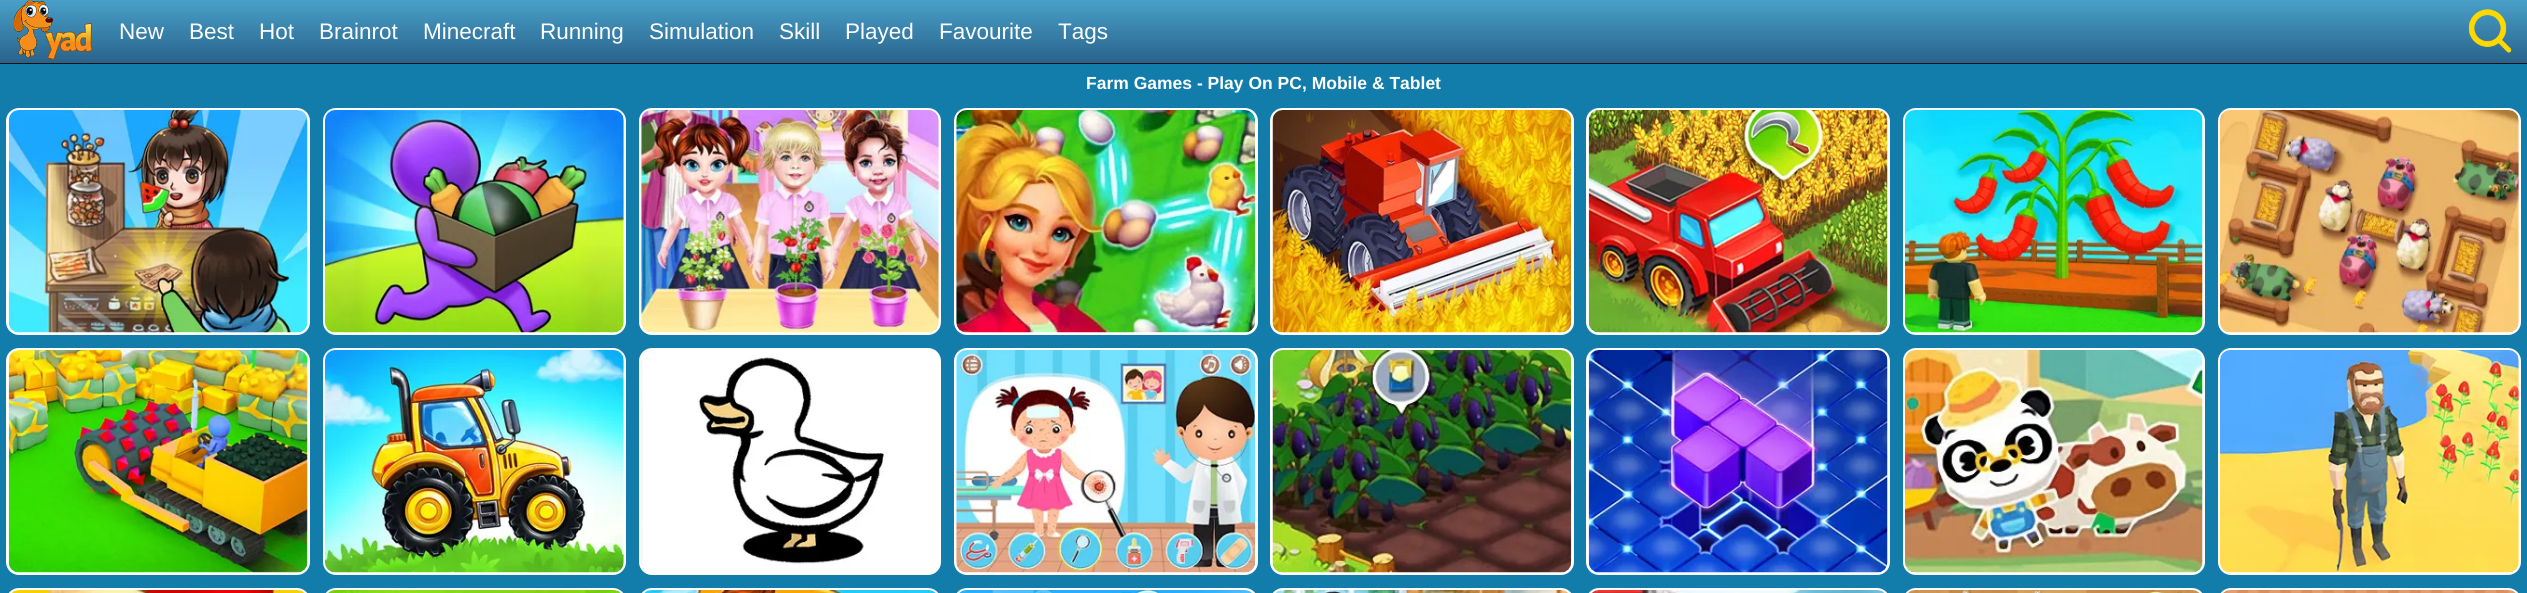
import math
import cairo


def round_path(ctx, x, y, w, h, r):
	ctx.new_sub_path()
	for i, (u, v) in enumerate([(x + w - r, y + h - r), (x + r, y + h - r), (x + r, y + r), (x + w - r, y + r)]):
		ctx.arc(u, v, r, i * math.pi / 2, (i + 1) * math.pi / 2)
	ctx.close_path()

def paste(ctx, path, x, y, w, h):
	ctx.save()
	ctx.set_source_surface(cairo.ImageSurface.create_from_png(path), x, y)
	ctx.rectangle(x, y, w, h)
	ctx.fill()
	ctx.restore()

def draw(ctx):
	ctx.set_source_rgb(0.071, 0.49, 0.671)
	ctx.paint()
	gradient = cairo.LinearGradient(1264, 0, 1264, 63)
	gradient.add_color_stop_rgba(0, 0.282, 0.627, 0.788, 1)
	gradient.add_color_stop_rgba(1, 0.161, 0.388, 0.545, 1)
	ctx.set_source(gradient)
	ctx.rectangle(0, 0, 2527, 63)
	ctx.fill()
	ctx.set_source_rgb(0.067, 0.067, 0.067)
	ctx.rectangle(0, 63, 2527, 1)
	ctx.fill()
	paste(ctx, 'media/1.png', 13, 0, 80, 60)
	ctx.select_font_face('Liberation Sans')
	ctx.set_font_size(22.5)
	ctx.set_source_rgb(1, 1, 1)
	for x, y, s in [
		(119, 39, 'New'),
		(189, 39, 'Best'),
		(259, 39, 'Hot'),
		(319, 39, 'Brainrot'),
		(423, 39, 'Minecraft'),
		(540, 39, 'Running'),
		(649, 39, 'Simulation'),
		(779, 39, 'Skill'),
		(845, 39, 'Played'),
		(939, 39, 'Favourite'),
		(1058, 39, 'Tags'),
	]:
		ctx.move_to(x, y)
		ctx.show_text(s)
	paste(ctx, 'media/2.png', 2468, 9, 44, 44)
	ctx.select_font_face('Liberation Sans', cairo.FONT_SLANT_NORMAL, cairo.FONT_WEIGHT_BOLD)
	ctx.set_font_size(17.5)
	ctx.move_to(1086, 89)
	ctx.show_text('Farm Games - Play On PC, Mobile & Tablet')
	round_path(ctx, 7.5, 109.5, 301, 224, 11.5)
	ctx.set_line_width(3)
	ctx.stroke()
	paste(ctx, 'media/3.png', 8, 110, 300, 223)
	round_path(ctx, 324.5, 109.5, 300, 224, 11.5)
	ctx.stroke()
	paste(ctx, 'media/4.png', 325, 110, 299, 223)
	round_path(ctx, 640.5, 109.5, 299, 224, 11.5)
	ctx.stroke()
	paste(ctx, 'media/5.png', 641, 110, 298, 223)
	round_path(ctx, 955.5, 109.5, 301, 224, 11.5)
	ctx.stroke()
	paste(ctx, 'media/6.png', 956, 110, 299, 223)
	round_path(ctx, 1271.5, 109.5, 301, 224, 11.5)
	ctx.stroke()
	paste(ctx, 'media/7.png', 1272, 110, 300, 223)
	round_path(ctx, 1587.5, 109.5, 301, 224, 11.5)
	ctx.stroke()
	paste(ctx, 'media/8.png', 1588, 110, 300, 223)
	round_path(ctx, 1904.5, 109.5, 299, 224, 11.5)
	ctx.stroke()
	paste(ctx, 'media/9.png', 1905, 110, 298, 223)
	round_path(ctx, 2219.5, 109.5, 300, 224, 11.5)
	ctx.stroke()
	paste(ctx, 'media/10.png', 2220, 110, 299, 223)
	round_path(ctx, 7.5, 349.5, 301, 224, 11.5)
	ctx.stroke()
	paste(ctx, 'media/11.png', 8, 350, 300, 223)
	round_path(ctx, 324.5, 349.5, 300, 224, 11.5)
	ctx.stroke()
	paste(ctx, 'media/12.png', 325, 350, 299, 223)
	round_path(ctx, 640.5, 349.5, 299, 224, 11.5)
	ctx.stroke()
	paste(ctx, 'media/13.png', 641, 351, 297, 221)
	round_path(ctx, 955.5, 349.5, 301, 224, 11.5)
	ctx.stroke()
	paste(ctx, 'media/14.png', 956, 350, 299, 223)
	round_path(ctx, 1271.5, 349.5, 301, 224, 11.5)
	ctx.stroke()
	paste(ctx, 'media/15.png', 1272, 350, 300, 223)
	round_path(ctx, 1587.5, 349.5, 301, 224, 11.5)
	ctx.stroke()
	paste(ctx, 'media/16.png', 1588, 350, 300, 223)
	round_path(ctx, 1904.5, 349.5, 299, 224, 11.5)
	ctx.stroke()
	paste(ctx, 'media/17.png', 1905, 350, 298, 223)
	round_path(ctx, 2219.5, 349.5, 300, 224, 11.5)
	ctx.stroke()
	paste(ctx, 'media/18.png', 2220, 350, 299, 223)
	round_path(ctx, 7.5, 589.5, 301, 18, 11.5)
	ctx.stroke()
	paste(ctx, 'media/19.png', 11, 590, 294, 3)
	round_path(ctx, 324.5, 589.5, 300, 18, 11.5)
	ctx.stroke()
	paste(ctx, 'media/20.png', 328, 590, 293, 3)
	round_path(ctx, 640.5, 589.5, 299, 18, 11.5)
	ctx.stroke()
	paste(ctx, 'media/21.png', 644, 590, 292, 3)
	round_path(ctx, 955.5, 589.5, 301, 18, 11.5)
	ctx.stroke()
	paste(ctx, 'media/22.png', 959, 590, 293, 3)
	round_path(ctx, 1271.5, 589.5, 301, 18, 11.5)
	ctx.stroke()
	paste(ctx, 'media/23.png', 1275, 590, 293, 3)
	round_path(ctx, 1587.5, 589.5, 301, 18, 11.5)
	ctx.stroke()
	paste(ctx, 'media/24.png', 1591, 590, 294, 3)
	round_path(ctx, 1904.5, 589.5, 299, 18, 11.5)
	ctx.stroke()
	paste(ctx, 'media/25.png', 1908, 590, 292, 3)
	round_path(ctx, 2219.5, 589.5, 300, 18, 11.5)
	ctx.stroke()
	paste(ctx, 'media/26.png', 2223, 590, 293, 3)


surface = cairo.ImageSurface(cairo.FORMAT_RGB24, 2527, 593)
ctx = cairo.Context(surface)
options = cairo.FontOptions()
options.set_hint_metrics(cairo.HINT_METRICS_OFF)
options.set_hint_style(cairo.HINT_STYLE_NONE)
ctx.set_font_options(options)
ctx.set_miter_limit(4)
draw(ctx)
surface.write_to_png('image.png')
